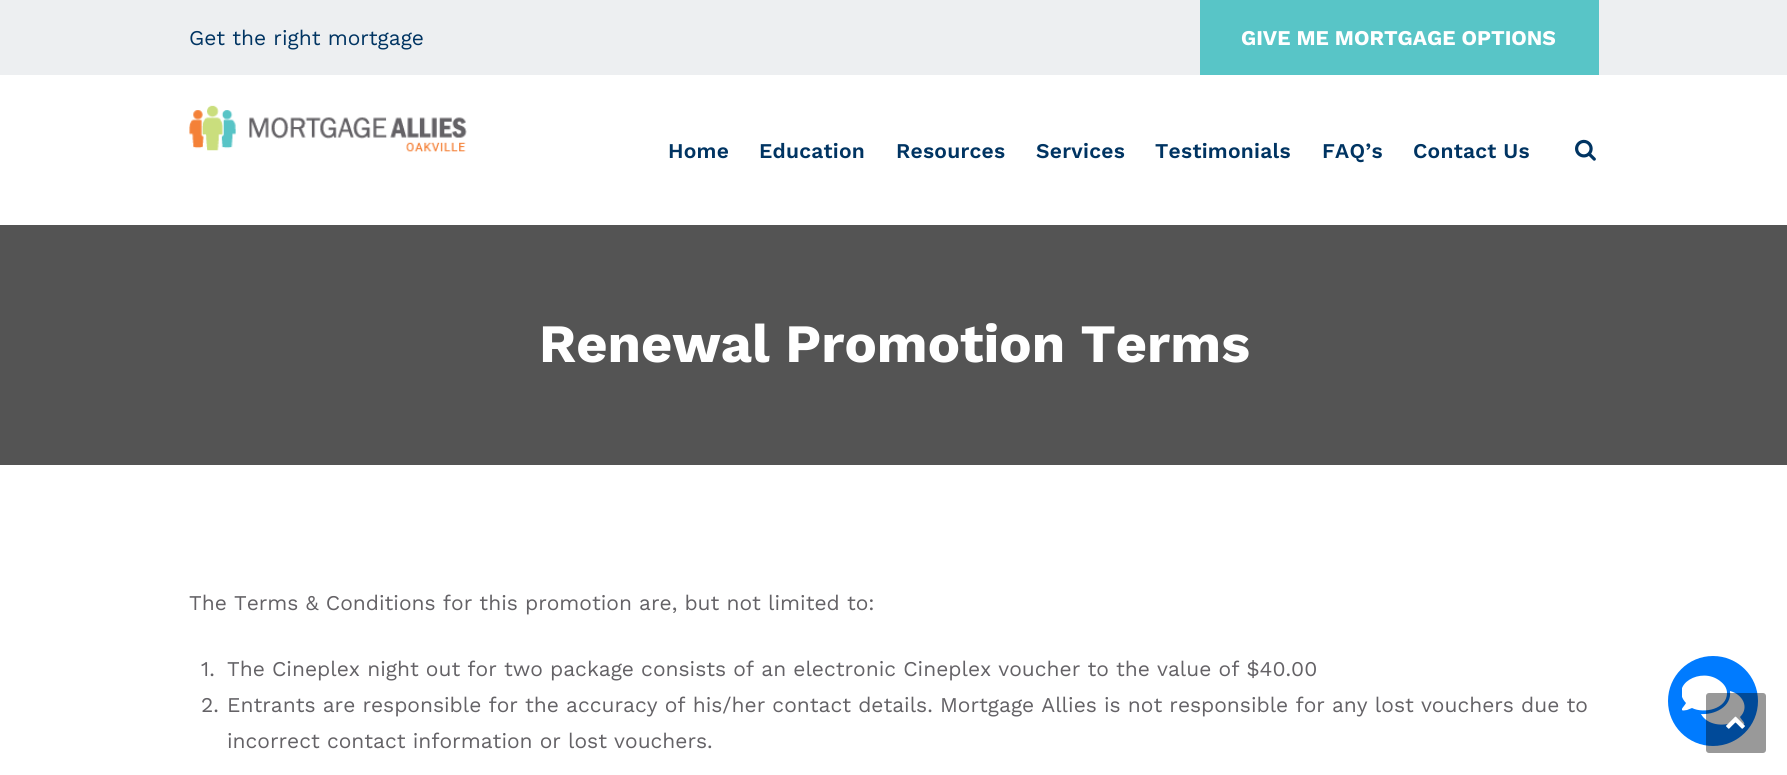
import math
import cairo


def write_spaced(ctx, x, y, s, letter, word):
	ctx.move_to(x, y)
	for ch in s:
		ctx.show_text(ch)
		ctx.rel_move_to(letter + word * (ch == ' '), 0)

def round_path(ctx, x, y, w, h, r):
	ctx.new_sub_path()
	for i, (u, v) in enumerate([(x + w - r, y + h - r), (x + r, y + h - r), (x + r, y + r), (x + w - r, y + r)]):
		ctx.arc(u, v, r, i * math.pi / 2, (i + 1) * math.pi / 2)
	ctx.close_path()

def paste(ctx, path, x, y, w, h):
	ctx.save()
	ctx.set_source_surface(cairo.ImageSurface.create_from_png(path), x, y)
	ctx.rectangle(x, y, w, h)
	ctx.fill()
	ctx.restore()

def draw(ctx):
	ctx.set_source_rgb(1, 1, 1)
	ctx.paint()
	ctx.set_source_rgb(0.929, 0.937, 0.945)
	ctx.rectangle(0, 0, 1787, 75)
	ctx.fill()
	ctx.select_font_face('Work Sans')
	ctx.set_font_size(21)
	ctx.set_source_rgb(0, 0.204, 0.384)
	ctx.move_to(189, 45)
	ctx.show_text('Get the right mortgage')
	ctx.set_source_rgb(0.345, 0.773, 0.78)
	ctx.rectangle(1200, 0, 399, 75)
	ctx.fill()
	ctx.select_font_face('Work Sans', cairo.FONT_SLANT_NORMAL, cairo.FONT_WEIGHT_BOLD)
	ctx.set_source_rgb(1, 1, 1)
	ctx.move_to(1241, 45)
	ctx.show_text('GIVE ME MORTGAGE OPTIONS')
	paste(ctx, 'media/1.png', 189, 105, 278, 47)
	ctx.select_font_face('Work Sans SemiBold')
	ctx.set_source_rgb(0, 0.204, 0.384)
	for x, y, s in [
		(668, 158, 'Home'),
		(759, 158, 'Education'),
		(896, 158, 'Resources'),
		(1036, 158, 'Services'),
		(1155, 158, 'Testimonials'),
		(1322, 158, 'FAQ’s'),
		(1413, 158, 'Contact Us'),
	]:
		write_spaced(ctx, x, y, s, 0.25, 0)
	paste(ctx, 'media/2.png', 1575, 139, 21, 22)
	ctx.set_source_rgb(0.329, 0.329, 0.329)
	ctx.rectangle(0, 225, 1787, 240)
	ctx.fill()
	ctx.select_font_face('Work Sans', cairo.FONT_SLANT_NORMAL, cairo.FONT_WEIGHT_BOLD)
	ctx.set_font_size(54)
	ctx.set_source_rgb(1, 1, 1)
	ctx.move_to(539, 362)
	ctx.show_text('Renewal Promotion Terms')
	ctx.select_font_face('Work Sans')
	ctx.set_font_size(21)
	ctx.set_source_rgb(0.392, 0.384, 0.4)
	for x, y, s in [
		(189, 610, 'The Terms & Conditions for this promotion are, but not limited to:'),
		(201, 676, '1.'),
		(227, 676, 'The Cineplex night out for two package consists of an electronic Cineplex voucher to the value of $40.00'),
		(201, 712, '2.'),
		(227, 712, 'Entrants are responsible for the accuracy of his/her contact details. Mortgage Allies is not responsible for any lost vouchers due to'),
		(227, 748, 'incorrect contact information or lost vouchers.'),
	]:
		ctx.move_to(x, y)
		ctx.show_text(s)
	ctx.set_source_rgb(0, 0.482, 1)
	ctx.new_path()
	ctx.arc(1713, 701, 45, 0, 2 * math.pi)
	ctx.fill()
	ctx.save()
	ctx.rectangle(1682, 672, 63, 57)
	ctx.clip()
	ctx.set_source_rgb(1, 1, 1)
	ctx.new_path()
	ctx.move_to(1727, 693)
	ctx.curve_to(1727, 688, 1724, 684, 1720, 681)
	ctx.curve_to(1701, 666, 1669, 685, 1686, 703)
	ctx.curve_to(1684, 707, 1677, 712, 1687, 710)
	ctx.line_to(1692, 708)
	ctx.curve_to(1704, 714, 1727, 709, 1727, 693)
	ctx.close_path()
	ctx.move_to(1740, 717)
	ctx.curve_to(1750, 707, 1742, 694, 1730, 691)
	ctx.curve_to(1732, 707, 1714, 715, 1701, 714)
	ctx.curve_to(1707, 725, 1723, 727, 1734, 722)
	ctx.line_to(1739, 724)
	ctx.curve_to(1749, 726, 1742, 721, 1740, 717)
	ctx.close_path()
	ctx.fill()
	ctx.restore()
	ctx.set_source_rgba(0, 0, 0, 0.4)
	round_path(ctx, 1706, 693, 60, 60, 3)
	ctx.fill()
	paste(ctx, 'media/3.png', 1726, 716, 19, 13)


surface = cairo.ImageSurface(cairo.FORMAT_RGB24, 1787, 775)
ctx = cairo.Context(surface)
options = cairo.FontOptions()
options.set_hint_metrics(cairo.HINT_METRICS_OFF)
options.set_hint_style(cairo.HINT_STYLE_NONE)
ctx.set_font_options(options)
ctx.set_miter_limit(4)
draw(ctx)
surface.write_to_png('image.png')
